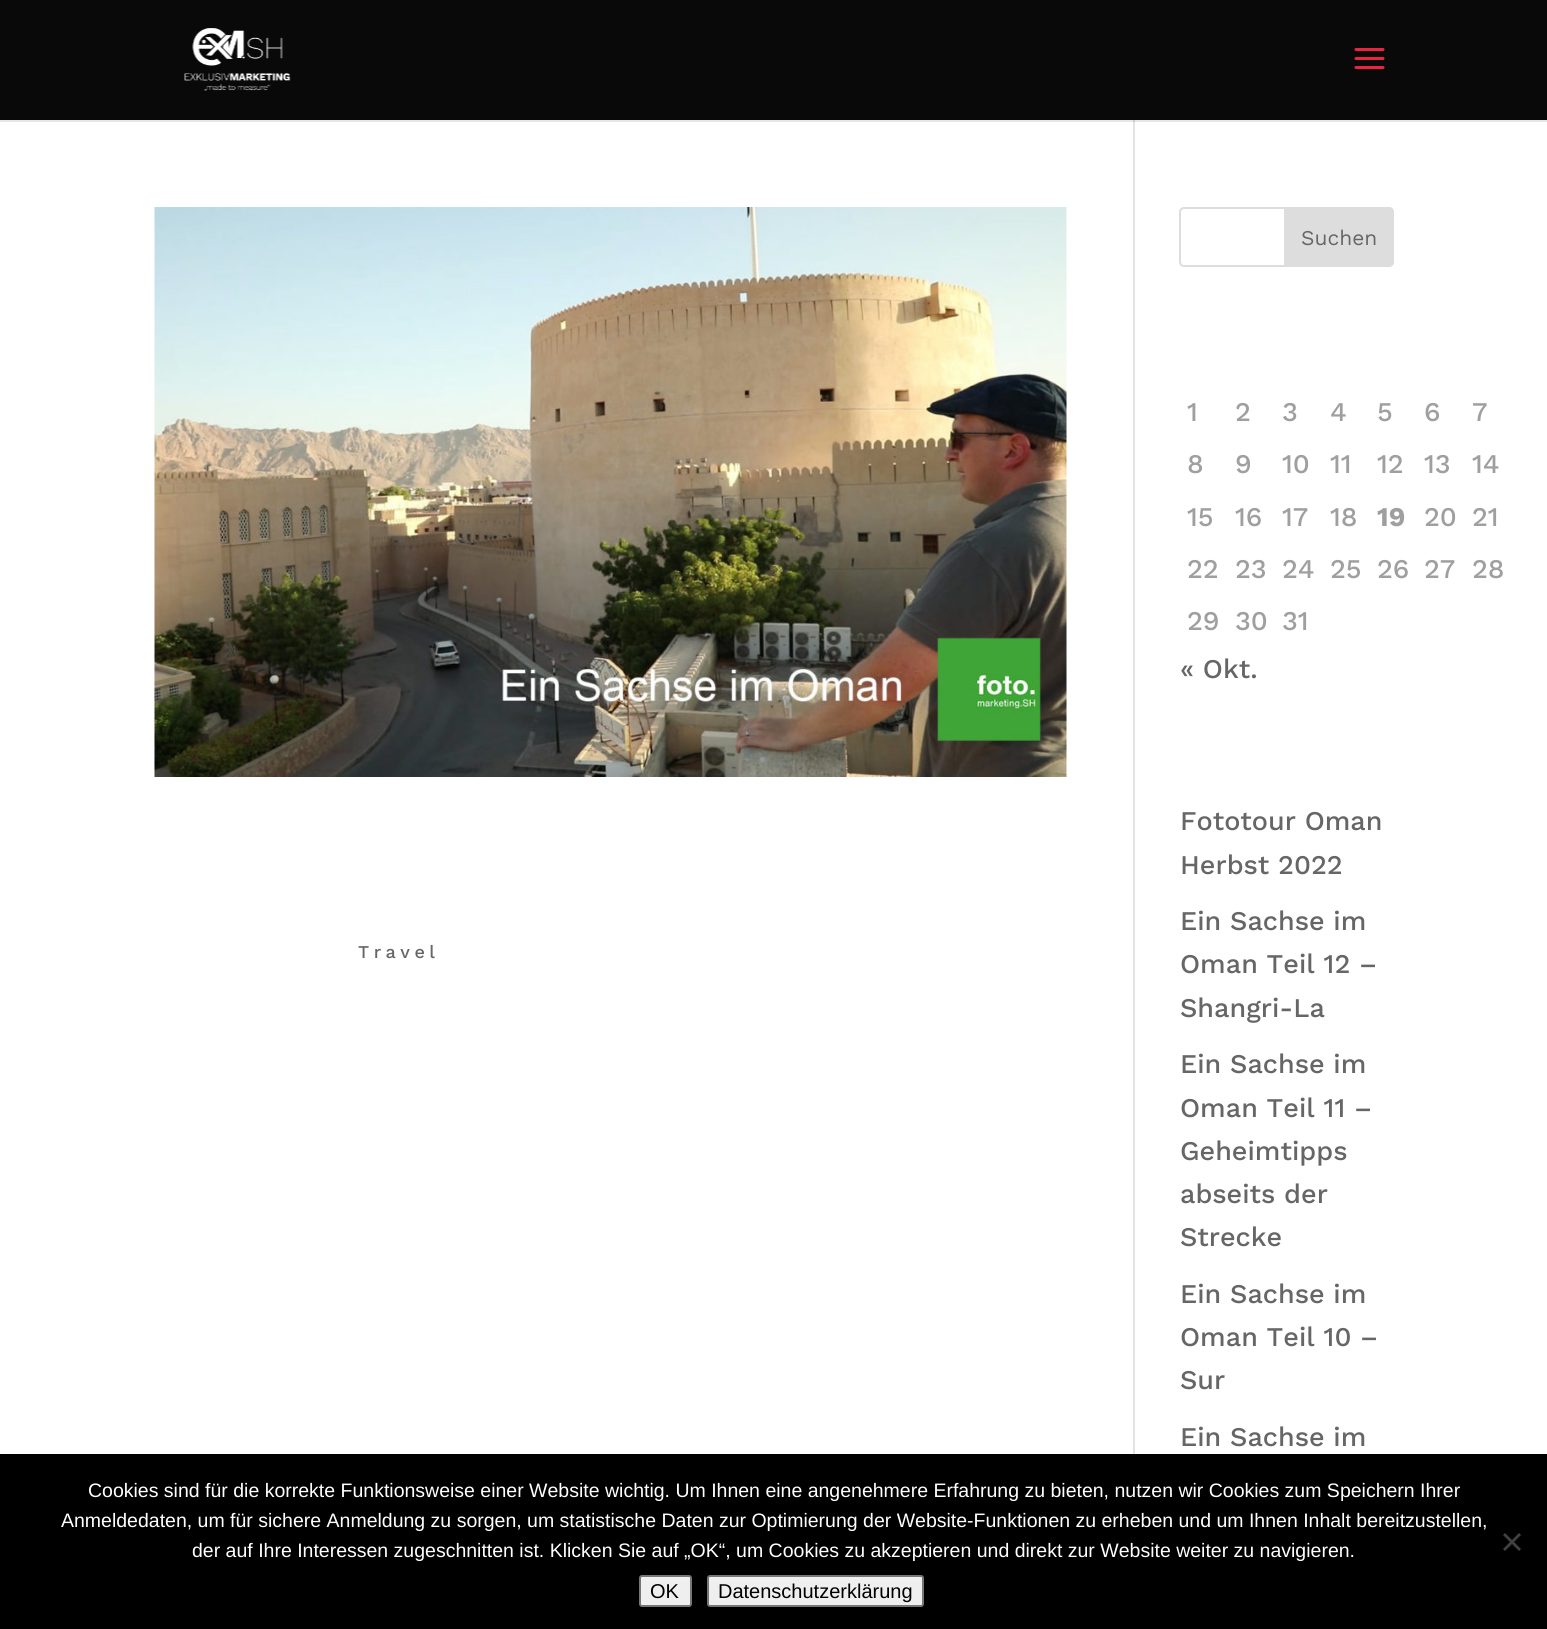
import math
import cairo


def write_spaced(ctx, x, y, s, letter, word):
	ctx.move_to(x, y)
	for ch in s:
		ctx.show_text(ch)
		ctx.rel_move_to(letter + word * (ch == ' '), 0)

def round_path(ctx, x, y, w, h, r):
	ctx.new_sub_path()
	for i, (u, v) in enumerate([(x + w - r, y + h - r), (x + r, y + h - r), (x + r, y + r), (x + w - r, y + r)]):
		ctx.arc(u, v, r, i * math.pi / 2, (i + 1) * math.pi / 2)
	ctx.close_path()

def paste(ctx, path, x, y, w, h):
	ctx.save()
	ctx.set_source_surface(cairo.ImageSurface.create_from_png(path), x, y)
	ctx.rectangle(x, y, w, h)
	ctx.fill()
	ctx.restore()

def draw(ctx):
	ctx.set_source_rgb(1, 1, 1)
	ctx.paint()
	ctx.set_source_rgb(0.039, 0.039, 0.039)
	ctx.rectangle(0, 0, 1547, 120)
	ctx.fill()
	paste(ctx, 'media/1.png', 184, 28, 107, 63)
	paste(ctx, 'media/2.png', 1354, 48, 31, 21)
	ctx.set_source_rgb(0.902, 0.902, 0.902)
	ctx.rectangle(0, 120, 1547, 2)
	ctx.fill()
	ctx.set_source_rgb(0.886, 0.886, 0.886)
	ctx.rectangle(1133, 120, 2, 1334)
	ctx.fill()
	ctx.set_source_rgb(0.796, 0.796, 0.796)
	ctx.rectangle(1133, 120, 2, 2)
	ctx.fill()
	paste(ctx, 'media/3.png', 154, 207, 913, 570)
	ctx.select_font_face('Work Sans Medium')
	ctx.set_font_size(18)
	ctx.set_source_rgb(0.4, 0.4, 0.4)
	write_spaced(ctx, 358, 958, 'Travel', 4.5, 0)
	round_path(ctx, 1180, 208, 213, 58, 4)
	ctx.set_source_rgb(0.867, 0.867, 0.867)
	ctx.stroke()
	ctx.new_path()
	ctx.move_to(1285, 208)
	ctx.line_to(1389, 208)
	ctx.curve_to(1391, 208, 1393, 210, 1393, 212)
	ctx.line_to(1393, 262)
	ctx.curve_to(1393, 264, 1391, 266, 1389, 266)
	ctx.line_to(1285, 266)
	ctx.close_path()
	ctx.fill_preserve()
	ctx.stroke()
	ctx.select_font_face('Work Sans')
	ctx.set_font_size(21)
	ctx.set_source_rgb(0.4, 0.4, 0.4)
	ctx.move_to(1301, 245)
	ctx.show_text('Suchen')
	ctx.select_font_face('Work Sans Medium')
	ctx.set_font_size(27)
	ctx.set_source_rgb(0.624, 0.624, 0.624)
	for x, y, s in [
		(1187, 421, '1'),
		(1235, 421, '2'),
		(1282, 421, '3'),
		(1330, 421, '4'),
		(1377, 421, '5'),
		(1424, 421, '6'),
		(1472, 421, '7'),
		(1187, 473, '8'),
		(1235, 473, '9'),
		(1282, 473, '10'),
		(1330, 473, '11'),
		(1377, 473, '12'),
		(1424, 473, '13'),
		(1472, 473, '14'),
		(1187, 526, '15'),
		(1235, 526, '16'),
		(1282, 526, '17'),
		(1330, 526, '18'),
	]:
		ctx.move_to(x, y)
		ctx.show_text(s)
	ctx.select_font_face('Work Sans', cairo.FONT_SLANT_NORMAL, cairo.FONT_WEIGHT_BOLD)
	ctx.move_to(1377, 526)
	ctx.show_text('19')
	ctx.select_font_face('Work Sans Medium')
	for x, y, s in [
		(1424, 526, '20'),
		(1472, 526, '21'),
		(1187, 578, '22'),
		(1235, 578, '23'),
		(1282, 578, '24'),
		(1330, 578, '25'),
		(1377, 578, '26'),
		(1424, 578, '27'),
		(1472, 578, '28'),
		(1187, 630, '29'),
		(1235, 630, '30'),
		(1282, 630, '31'),
	]:
		ctx.move_to(x, y)
		ctx.show_text(s)
	ctx.set_source_rgb(0.4, 0.4, 0.4)
	for x, y, s in [
		(1180, 678, '« Okt.'),
		(1180, 830, 'Fototour Oman'),
		(1180, 874, 'Herbst 2022'),
		(1180, 930, 'Ein Sachse im'),
		(1180, 973, 'Oman Teil 12 –'),
		(1180, 1017, 'Shangri-La'),
		(1180, 1073, 'Ein Sachse im'),
		(1180, 1117, 'Oman Teil 11 –'),
		(1180, 1160, 'Geheimtipps'),
		(1180, 1203, 'abseits der'),
		(1180, 1246, 'Strecke'),
		(1180, 1303, 'Ein Sachse im'),
		(1180, 1346, 'Oman Teil 10 –'),
		(1180, 1389, 'Sur'),
		(1180, 1446, 'Ein Sachse im'),
	]:
		ctx.move_to(x, y)
		ctx.show_text(s)
	ctx.set_source_rgb(0, 0, 0)
	ctx.rectangle(0, 1454, 1547, 175)
	ctx.fill()
	ctx.select_font_face('Liberation Sans')
	ctx.set_font_size(19.5)
	ctx.set_source_rgb(1, 1, 1)
	for x, y, s in [
		(88, 1497, 'Cookies sind für die korrekte Funktionsweise einer Website wichtig. Um Ihnen eine angenehmere Erfahrung zu bieten, nutzen wir Cookies zum Speichern Ihrer'),
		(61, 1527, 'Anmeldedaten, um für sichere Anmeldung zu sorgen, um statistische Daten zur Optimierung der Website-Funktionen zu erheben und um Ihnen Inhalt bereitzustellen,'),
		(192, 1557, 'der auf Ihre Interessen zugeschnitten ist. Klicken Sie auf „OK“, um Cookies zu akzeptieren und direkt zur Website weiter zu navigieren.'),
	]:
		ctx.move_to(x, y)
		ctx.show_text(s)
	ctx.set_source_rgb(0.251, 0.251, 0.251)
	ctx.new_path()
	ctx.move_to(1519, 1533)
	ctx.line_to(1521, 1535)
	ctx.line_to(1505, 1551)
	ctx.line_to(1503, 1549)
	ctx.close_path()
	ctx.fill()
	ctx.new_path()
	ctx.move_to(1503, 1535)
	ctx.line_to(1505, 1533)
	ctx.line_to(1521, 1549)
	ctx.line_to(1519, 1551)
	ctx.close_path()
	ctx.fill()
	ctx.set_source_rgb(0.937, 0.937, 0.937)
	round_path(ctx, 640, 1576, 51, 30, 2)
	ctx.fill_preserve()
	ctx.set_source_rgb(0.463, 0.463, 0.463)
	ctx.stroke()
	ctx.set_font_size(20)
	ctx.set_source_rgb(0, 0, 0)
	ctx.move_to(650, 1598)
	ctx.show_text('OK')
	ctx.set_source_rgb(0.937, 0.937, 0.937)
	round_path(ctx, 708, 1576, 215, 30, 2)
	ctx.fill_preserve()
	ctx.set_source_rgb(0.463, 0.463, 0.463)
	ctx.stroke()
	ctx.set_source_rgb(0, 0, 0)
	ctx.move_to(718, 1598)
	ctx.show_text('Datenschutzerklärung')


surface = cairo.ImageSurface(cairo.FORMAT_RGB24, 1547, 1629)
ctx = cairo.Context(surface)
options = cairo.FontOptions()
options.set_hint_metrics(cairo.HINT_METRICS_OFF)
options.set_hint_style(cairo.HINT_STYLE_NONE)
ctx.set_font_options(options)
ctx.set_miter_limit(4)
draw(ctx)
surface.write_to_png('image.png')
